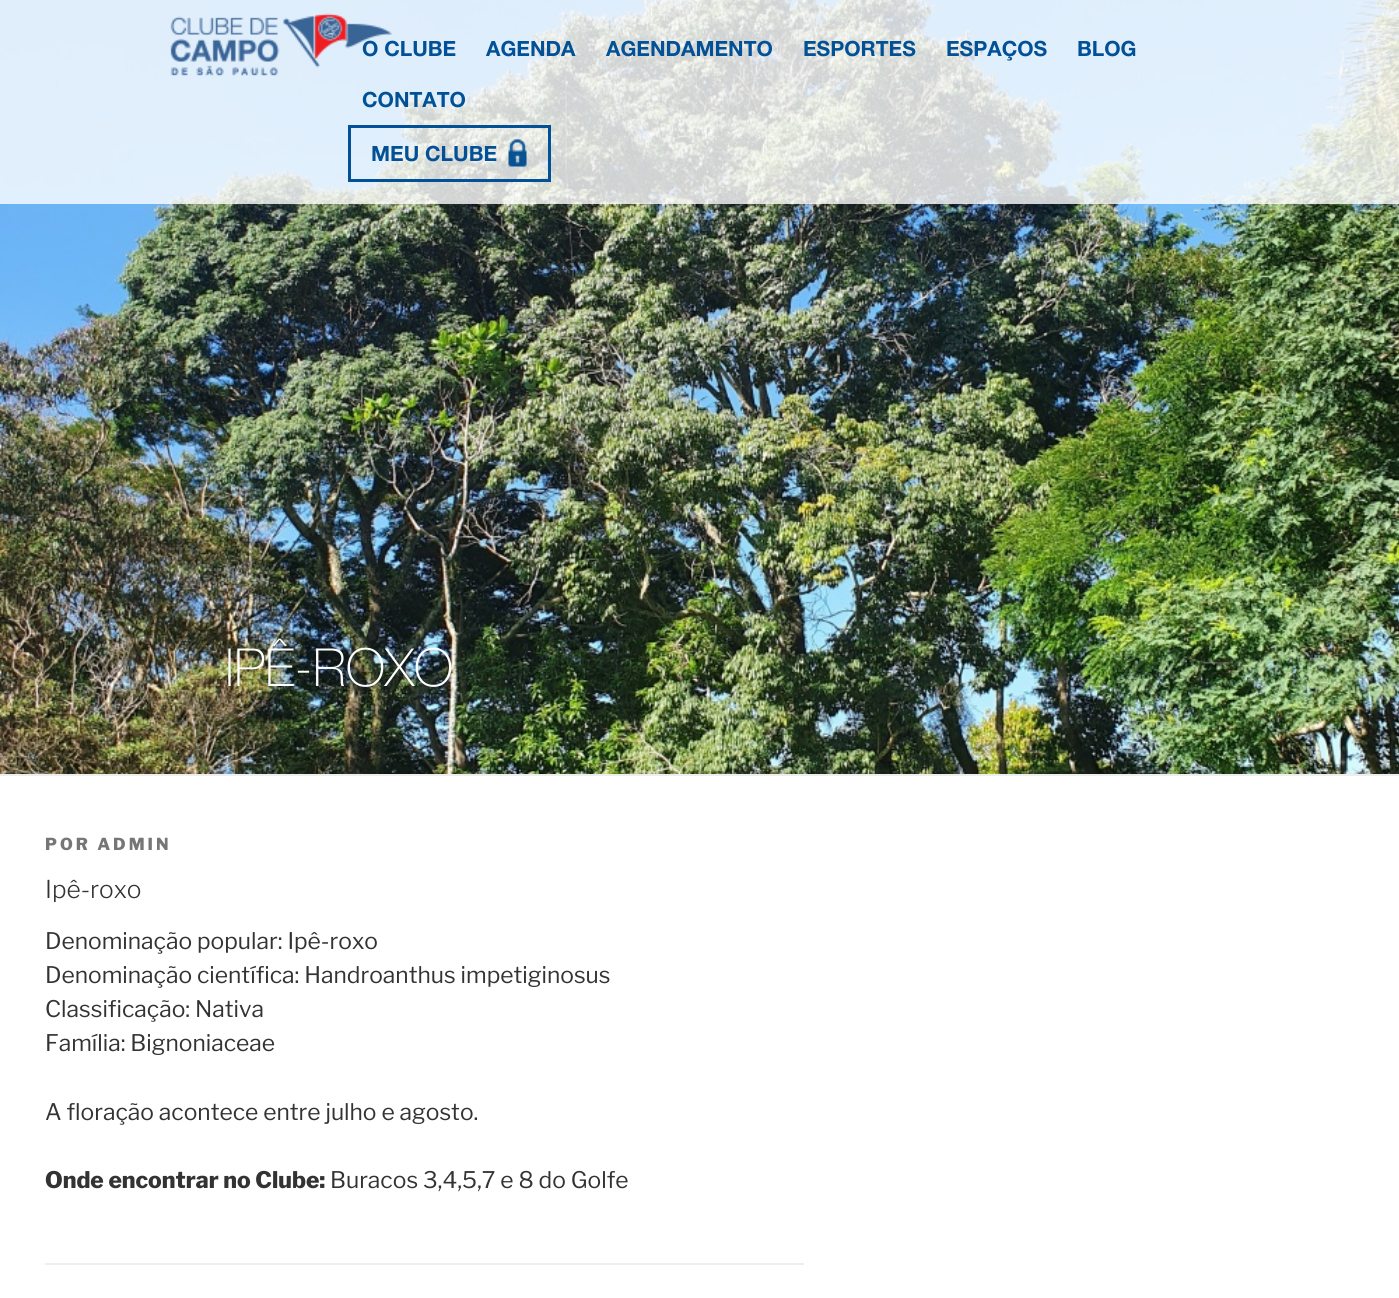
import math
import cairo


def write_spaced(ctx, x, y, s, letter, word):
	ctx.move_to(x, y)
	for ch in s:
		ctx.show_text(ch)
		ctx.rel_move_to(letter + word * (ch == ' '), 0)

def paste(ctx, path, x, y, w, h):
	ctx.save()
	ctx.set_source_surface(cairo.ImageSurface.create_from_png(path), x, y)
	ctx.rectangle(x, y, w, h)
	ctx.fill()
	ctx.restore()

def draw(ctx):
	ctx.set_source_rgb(1, 1, 1)
	ctx.paint()
	paste(ctx, 'media/3.png', 0, 0, 1399, 774)
	ctx.set_source_rgba(1, 1, 1, 0.8)
	ctx.rectangle(0, 0, 1399, 204)
	ctx.fill()
	paste(ctx, 'media/1.png', 170, 13, 222, 63)
	ctx.select_font_face('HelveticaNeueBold', cairo.FONT_SLANT_NORMAL, cairo.FONT_WEIGHT_BOLD)
	ctx.set_font_size(21)
	ctx.set_source_rgb(0.008, 0.318, 0.588)
	for x, y, s in [
		(362, 56, 'O CLUBE'),
		(486, 56, 'AGENDA'),
		(606, 56, 'AGENDAMENTO'),
		(803, 56, 'ESPORTES'),
		(946, 56, 'ESPAÇOS'),
		(1077, 56, 'BLOG'),
		(362, 107, 'CONTATO'),
	]:
		ctx.move_to(x, y)
		ctx.show_text(s)
	paste(ctx, 'media/2.png', 508, 139, 19, 28)
	ctx.rectangle(349.5, 126.5, 200, 54)
	ctx.set_line_width(3)
	ctx.stroke()
	ctx.move_to(371, 161)
	ctx.show_text('MEU CLUBE')
	ctx.set_source_rgb(0.933, 0.933, 0.933)
	ctx.rectangle(0, 774, 1399, 2)
	ctx.fill()
	ctx.select_font_face('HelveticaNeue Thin')
	ctx.set_font_size(52.5)
	ctx.set_source_rgb(1, 1, 1)
	ctx.move_to(225, 686)
	ctx.show_text('IPÊ-ROXO')
	ctx.select_font_face('Libre Franklin ExtraBold')
	ctx.set_font_size(16.5)
	ctx.set_source_rgb(0.463, 0.463, 0.463)
	write_spaced(ctx, 45, 850, 'POR ADMIN', 3, 0)
	ctx.select_font_face('Libre Franklin Light')
	ctx.set_font_size(24.5)
	ctx.set_source_rgb(0.2, 0.2, 0.2)
	ctx.move_to(45, 898)
	ctx.show_text('Ipê-roxo')
	ctx.select_font_face('Libre Franklin')
	ctx.set_font_size(22.8)
	for x, y, s in [
		(45, 949, 'Denominação popular: Ipê-roxo'),
		(45, 983, 'Denominação científica: Handroanthus impetiginosus'),
		(45, 1017, 'Classificação: Nativa'),
		(45, 1051, 'Família: Bignoniaceae'),
		(45, 1120, 'A floração acontece entre julho e agosto.'),
	]:
		ctx.move_to(x, y)
		ctx.show_text(s)
	ctx.select_font_face('Libre Franklin ExtraBold')
	ctx.move_to(45, 1188)
	ctx.show_text('Onde encontrar no Clube:')
	ctx.select_font_face('Libre Franklin')
	ctx.move_to(330, 1188)
	ctx.show_text('Buracos 3,4,5,7 e 8 do Golfe')
	ctx.set_source_rgb(0.933, 0.933, 0.933)
	ctx.rectangle(45, 1263, 759, 2)
	ctx.fill()


surface = cairo.ImageSurface(cairo.FORMAT_RGB24, 1399, 1298)
ctx = cairo.Context(surface)
options = cairo.FontOptions()
options.set_hint_metrics(cairo.HINT_METRICS_OFF)
options.set_hint_style(cairo.HINT_STYLE_NONE)
ctx.set_font_options(options)
ctx.set_miter_limit(4)
draw(ctx)
surface.write_to_png('image.png')
